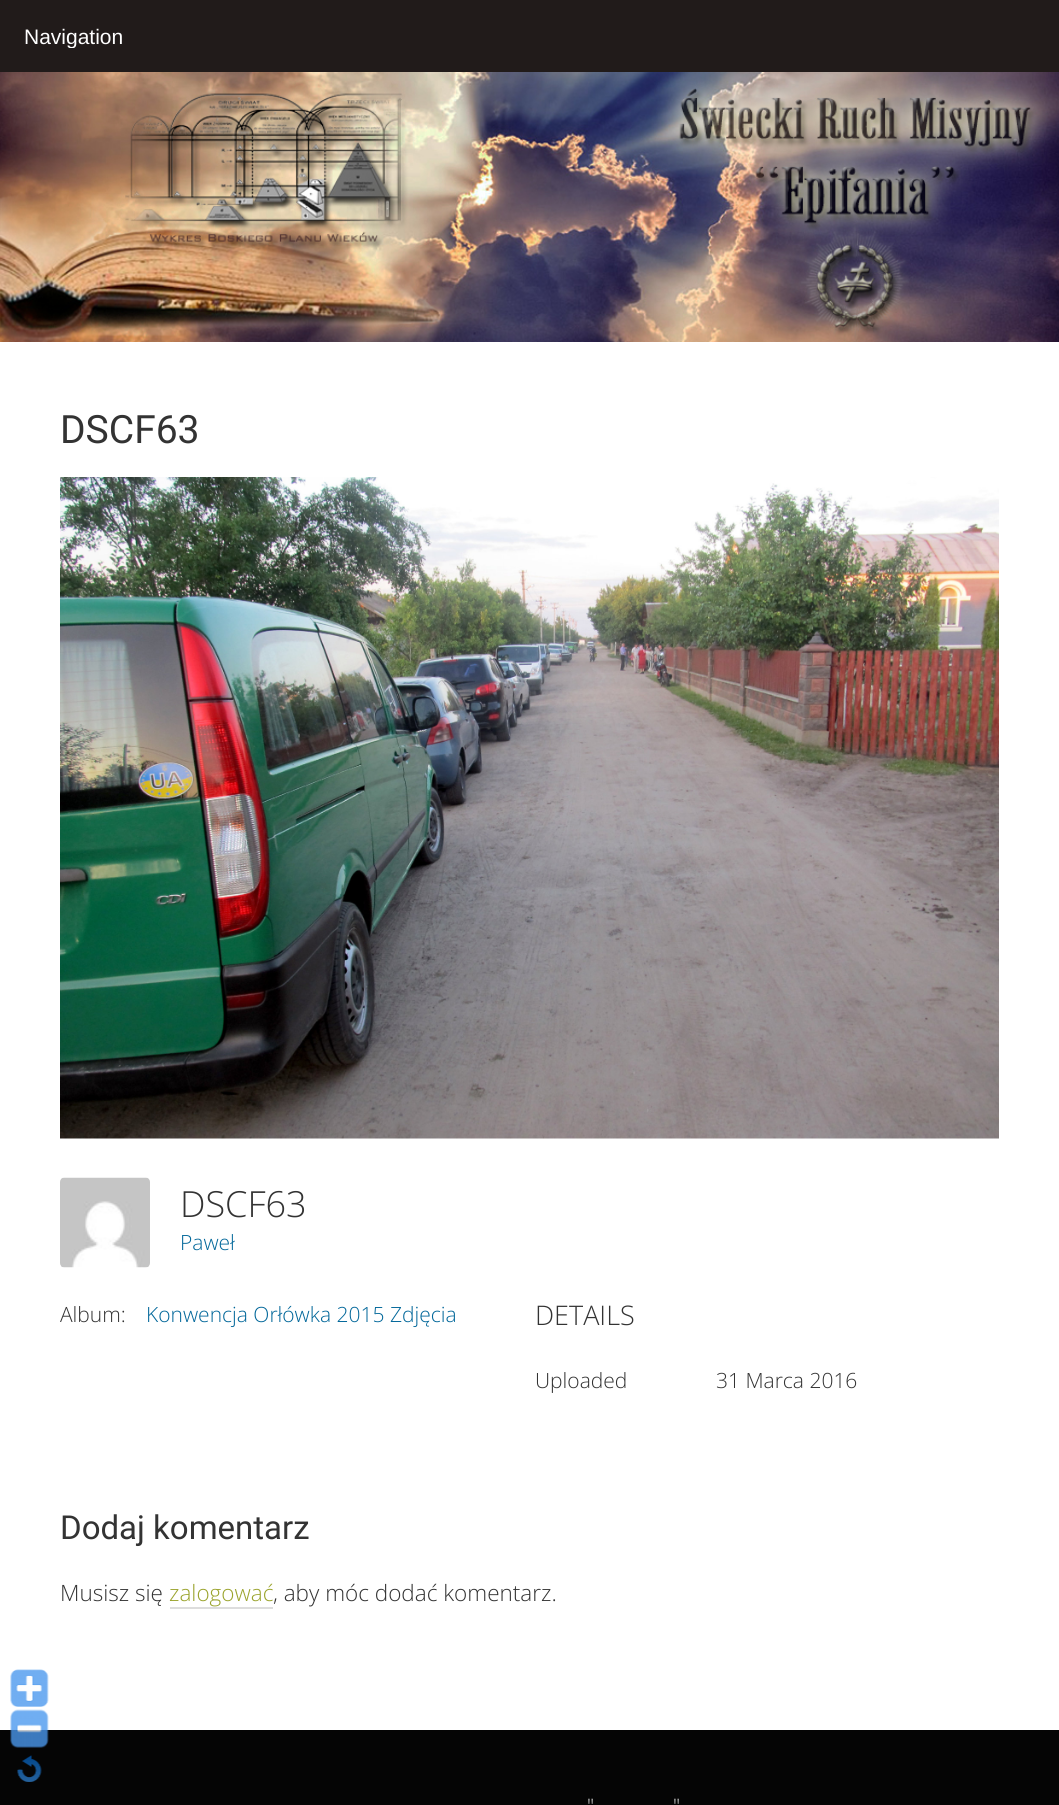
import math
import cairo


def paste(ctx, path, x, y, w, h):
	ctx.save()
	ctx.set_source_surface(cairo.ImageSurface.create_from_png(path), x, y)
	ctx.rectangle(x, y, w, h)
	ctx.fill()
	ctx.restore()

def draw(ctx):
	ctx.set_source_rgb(0.129, 0.106, 0.102)
	ctx.paint()
	ctx.save()
	ctx.rectangle(24, 24, 968, 24)
	ctx.clip()
	ctx.select_font_face('Liberation Sans')
	ctx.set_font_size(21)
	ctx.set_source_rgb(1, 1, 1)
	ctx.move_to(24, 44)
	ctx.show_text('Navigation')
	ctx.restore()
	paste(ctx, 'media/1.png', 0, 72, 1059, 270)
	ctx.set_source_rgb(1, 1, 1)
	ctx.rectangle(0, 342, 1059, 1388)
	ctx.fill()
	ctx.select_font_face('Roboto')
	ctx.set_font_size(39)
	ctx.set_source_rgb(0.2, 0.2, 0.2)
	ctx.move_to(60, 443)
	ctx.show_text('DSCF63')
	paste(ctx, 'media/2.png', 60, 477, 939, 662)
	paste(ctx, 'media/3.png', 60, 1177, 90, 91)
	ctx.select_font_face('Open Sans Light')
	ctx.set_font_size(36)
	ctx.move_to(180, 1217)
	ctx.show_text('DSCF63')
	ctx.set_font_size(21)
	ctx.set_source_rgb(0, 0.4, 0.6)
	ctx.move_to(180, 1250)
	ctx.show_text('Paweł')
	ctx.set_source_rgb(0.2, 0.2, 0.2)
	ctx.move_to(60, 1322)
	ctx.show_text('Album:')
	ctx.set_source_rgb(0, 0.4, 0.6)
	ctx.move_to(146, 1322)
	ctx.show_text('Konwencja Orłówka 2015 Zdjęcia')
	ctx.set_font_size(27)
	ctx.set_source_rgb(0.2, 0.2, 0.2)
	ctx.move_to(535, 1325)
	ctx.show_text('DETAILS')
	ctx.set_font_size(21)
	ctx.move_to(535, 1388)
	ctx.show_text('Uploaded')
	ctx.move_to(716, 1388)
	ctx.show_text('31 Marca 2016')
	ctx.select_font_face('Roboto')
	ctx.set_font_size(33)
	ctx.move_to(60, 1539)
	ctx.show_text('Dodaj komentarz')
	ctx.select_font_face('Open Sans Light')
	ctx.set_font_size(22.5)
	ctx.move_to(60, 1601)
	ctx.show_text('Musisz się')
	ctx.set_source_rgb(0.604, 0.639, 0.173)
	ctx.move_to(169, 1601)
	ctx.show_text('zalogować')
	ctx.set_source_rgb(0.867, 0.867, 0.867)
	ctx.rectangle(170, 1607, 103, 2)
	ctx.fill()
	ctx.set_source_rgb(0.2, 0.2, 0.2)
	ctx.move_to(273, 1601)
	ctx.show_text(', aby móc dodać komentarz.')
	ctx.set_source_rgb(0.02, 0.02, 0.02)
	ctx.rectangle(0, 1730, 1059, 75)
	ctx.fill()
	ctx.set_font_size(20)
	ctx.set_source_rgb(0.918, 0.918, 0.918)
	ctx.move_to(587, 1813)
	ctx.show_text('"')
	ctx.move_to(673, 1813)
	ctx.show_text('"')
	paste(ctx, 'media/4.png', 10, 1669, 39, 38)
	paste(ctx, 'media/5.png', 10, 1709, 39, 39)
	paste(ctx, 'media/6.png', 17, 1755, 25, 27)


surface = cairo.ImageSurface(cairo.FORMAT_RGB24, 1059, 1805)
ctx = cairo.Context(surface)
options = cairo.FontOptions()
options.set_hint_metrics(cairo.HINT_METRICS_OFF)
options.set_hint_style(cairo.HINT_STYLE_NONE)
ctx.set_font_options(options)
ctx.set_miter_limit(4)
draw(ctx)
surface.write_to_png('image.png')
